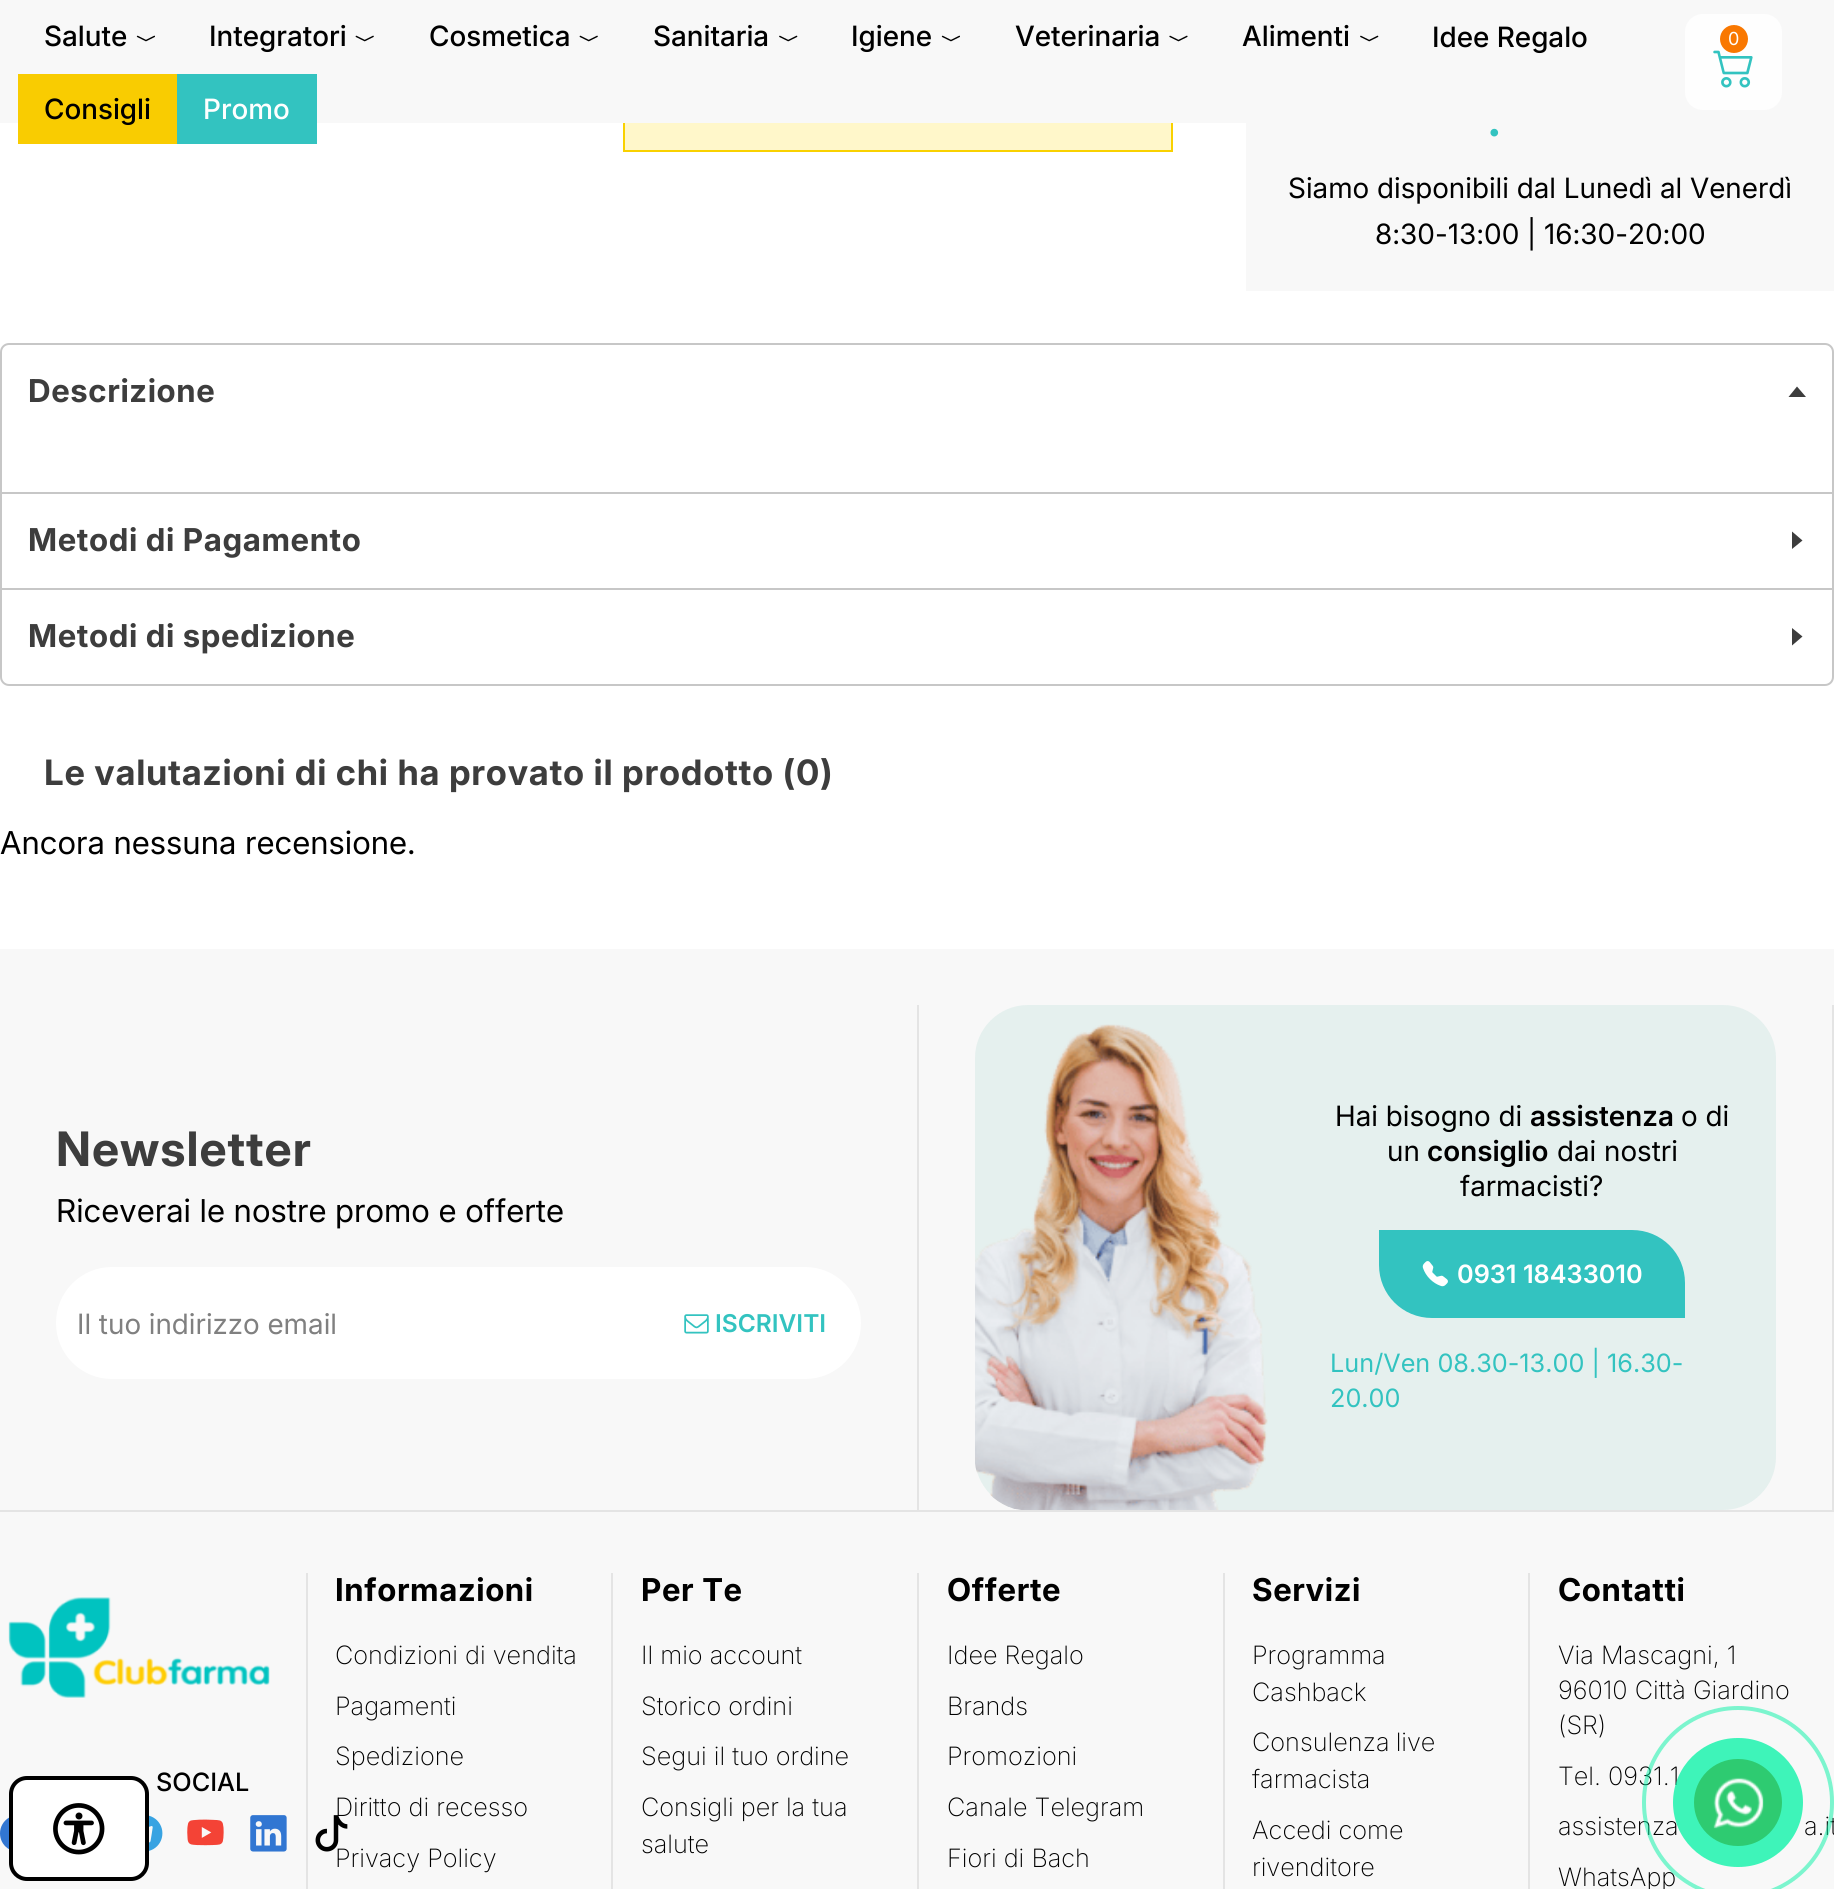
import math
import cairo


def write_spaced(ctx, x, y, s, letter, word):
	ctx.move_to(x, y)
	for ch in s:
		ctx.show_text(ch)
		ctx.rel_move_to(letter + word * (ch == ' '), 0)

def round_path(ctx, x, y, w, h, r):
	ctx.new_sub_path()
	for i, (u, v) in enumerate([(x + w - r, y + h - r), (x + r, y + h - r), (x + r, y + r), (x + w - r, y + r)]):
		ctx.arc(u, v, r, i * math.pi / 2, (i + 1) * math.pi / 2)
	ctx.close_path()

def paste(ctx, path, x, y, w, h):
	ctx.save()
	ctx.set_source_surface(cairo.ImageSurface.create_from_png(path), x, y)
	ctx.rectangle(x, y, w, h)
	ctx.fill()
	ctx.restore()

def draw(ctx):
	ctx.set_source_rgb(1, 1, 1)
	ctx.paint()
	ctx.set_source_rgb(1, 0.965, 0.792)
	ctx.rectangle(625, 123, 546, 27)
	ctx.fill()
	ctx.rectangle(624, -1, 548, 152)
	ctx.set_source_rgb(0.973, 0.82, 0)
	ctx.stroke()
	ctx.set_source_rgb(0.969, 0.969, 0.969)
	ctx.rectangle(0, 0, 1834, 123)
	ctx.fill()
	ctx.select_font_face('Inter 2 Medium')
	ctx.set_font_size(28)
	ctx.set_source_rgb(0, 0, 0)
	ctx.move_to(44, 46)
	ctx.show_text('Salute')
	paste(ctx, 'media/1.png', 136, 35, 19, 7)
	ctx.move_to(209, 46)
	ctx.show_text('Integratori')
	paste(ctx, 'media/2.png', 355, 35, 19, 7)
	ctx.move_to(429, 46)
	ctx.show_text('Cosmetica')
	paste(ctx, 'media/2.png', 579, 35, 19, 7)
	ctx.move_to(653, 46)
	ctx.show_text('Sanitaria')
	paste(ctx, 'media/3.png', 779, 35, 19, 7)
	ctx.move_to(851, 46)
	ctx.show_text('Igiene')
	paste(ctx, 'media/1.png', 941, 35, 19, 7)
	ctx.move_to(1015, 46)
	ctx.show_text('Veterinaria')
	paste(ctx, 'media/4.png', 1169, 35, 19, 7)
	ctx.move_to(1242, 46)
	ctx.show_text('Alimenti')
	paste(ctx, 'media/3.png', 1360, 35, 19, 7)
	ctx.move_to(1432, 47)
	ctx.show_text('Idee Regalo')
	ctx.set_source_rgb(0.976, 0.8, 0.004)
	ctx.rectangle(18, 74, 159, 70)
	ctx.fill()
	ctx.set_source_rgb(0, 0, 0)
	ctx.move_to(44, 119)
	ctx.show_text('Consigli')
	ctx.set_source_rgb(0.2, 0.765, 0.753)
	ctx.rectangle(177, 74, 140, 70)
	ctx.fill()
	ctx.set_source_rgb(1, 1, 1)
	ctx.move_to(203, 119)
	ctx.show_text('Promo')
	ctx.set_source_rgb(0.996, 0.996, 0.996)
	round_path(ctx, 1685, 14, 97, 96, 18)
	ctx.fill()
	paste(ctx, 'media/5.png', 1713, 50, 40, 38)
	ctx.set_source_rgb(0.973, 0.471, 0.004)
	ctx.arc(1734, 39, 14, 0, 2 * math.pi)
	ctx.fill()
	ctx.select_font_face('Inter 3')
	ctx.set_font_size(18)
	ctx.set_source_rgb(1, 1, 1)
	ctx.move_to(1728, 45)
	ctx.show_text('0')
	ctx.set_source_rgb(0.969, 0.969, 0.969)
	ctx.rectangle(1246, 123, 588, 168)
	ctx.fill()
	ctx.select_font_face('Inter 3 SemiBold')
	ctx.set_font_size(50)
	ctx.set_source_rgb(0.2, 0.765, 0.753)
	write_spaced(ctx, 1488, 136, '.', 2, 0)
	ctx.select_font_face('Inter 2')
	ctx.set_font_size(28)
	ctx.set_source_rgb(0, 0, 0)
	ctx.move_to(1288, 198)
	ctx.show_text('Siamo disponibili dal Lunedì al Venerdì')
	ctx.move_to(1375, 244)
	ctx.show_text('8:30-13:00 | 16:30-20:00')
	round_path(ctx, 1, 344, 1832, 341, 8)
	ctx.set_source_rgb(0.78, 0.78, 0.78)
	ctx.stroke()
	ctx.select_font_face('Inter 3', cairo.FONT_SLANT_NORMAL, cairo.FONT_WEIGHT_BOLD)
	ctx.set_font_size(31.5)
	ctx.set_source_rgb(0.239, 0.239, 0.239)
	write_spaced(ctx, 28, 402, 'Descrizione', 0.6, 0)
	ctx.new_path()
	ctx.move_to(1806, 397)
	ctx.line_to(1788.5, 397)
	ctx.line_to(1797, 386.5)
	ctx.close_path()
	ctx.fill()
	ctx.set_source_rgb(0.78, 0.78, 0.78)
	ctx.rectangle(2, 492, 1830, 2)
	ctx.fill()
	ctx.set_source_rgb(0.239, 0.239, 0.239)
	write_spaced(ctx, 28, 551, 'Metodi di Pagamento', 0.6, 0)
	ctx.new_path()
	ctx.move_to(1792, 549)
	ctx.line_to(1792, 531.5)
	ctx.line_to(1802.5, 540.5)
	ctx.close_path()
	ctx.fill()
	ctx.set_source_rgb(0.78, 0.78, 0.78)
	ctx.rectangle(2, 588, 1830, 2)
	ctx.fill()
	ctx.set_source_rgb(0.239, 0.239, 0.239)
	write_spaced(ctx, 28, 647, 'Metodi di spedizione', 0.6, 0)
	ctx.new_path()
	ctx.move_to(1792, 645.5)
	ctx.line_to(1792, 628)
	ctx.line_to(1802.5, 636.5)
	ctx.close_path()
	ctx.fill()
	ctx.select_font_face('Inter', cairo.FONT_SLANT_NORMAL, cairo.FONT_WEIGHT_BOLD)
	ctx.set_font_size(35)
	write_spaced(ctx, 44, 785, 'Le valutazioni di chi ha provato il prodotto (0)', 0.7, 0)
	ctx.select_font_face('Inter')
	ctx.set_font_size(31.5)
	ctx.set_source_rgb(0, 0, 0)
	ctx.move_to(0, 854)
	ctx.show_text('Ancora nessuna recensione.')
	ctx.set_source_rgb(0.969, 0.969, 0.969)
	ctx.rectangle(0, 949, 1834, 940)
	ctx.fill()
	ctx.select_font_face('Inter 2', cairo.FONT_SLANT_NORMAL, cairo.FONT_WEIGHT_BOLD)
	ctx.set_font_size(47.5)
	ctx.set_source_rgb(0.239, 0.239, 0.239)
	write_spaced(ctx, 56, 1166, 'Newsletter', 1, 0)
	ctx.select_font_face('Inter')
	ctx.set_font_size(31.5)
	ctx.set_source_rgb(0, 0, 0)
	ctx.move_to(56, 1222)
	ctx.show_text('Riceverai le nostre promo e offerte')
	ctx.set_source_rgb(1, 1, 1)
	ctx.new_path()
	ctx.move_to(112, 1267)
	ctx.line_to(634, 1267)
	ctx.line_to(634, 1379)
	ctx.line_to(112, 1379)
	ctx.curve_to(81, 1379, 56, 1354, 56, 1323)
	ctx.curve_to(56, 1292, 81, 1267, 112, 1267)
	ctx.close_path()
	ctx.fill()
	ctx.select_font_face('Inter 2')
	ctx.set_font_size(28)
	ctx.set_source_rgb(0.502, 0.502, 0.502)
	ctx.move_to(77, 1334)
	ctx.show_text('Il tuo indirizzo email')
	ctx.set_source_rgb(1, 1, 1)
	ctx.new_path()
	ctx.move_to(634, 1267)
	ctx.line_to(805, 1267)
	ctx.curve_to(836, 1267, 861, 1292, 861, 1323)
	ctx.curve_to(861, 1354, 836, 1379, 805, 1379)
	ctx.line_to(634, 1379)
	ctx.close_path()
	ctx.fill()
	paste(ctx, 'media/6.png', 684, 1314, 25, 20)
	ctx.select_font_face('Inter SemiBold')
	ctx.set_font_size(24.5)
	ctx.set_source_rgb(0.2, 0.765, 0.753)
	ctx.move_to(715, 1332)
	ctx.show_text('ISCRIVITI')
	ctx.set_source_rgb(0.894, 0.894, 0.894)
	ctx.rectangle(1832, 1005, 2, 505)
	ctx.fill()
	ctx.rectangle(917, 1005, 2, 505)
	ctx.fill()
	ctx.set_source_rgb(0.898, 0.941, 0.933)
	round_path(ctx, 975, 1005, 801, 505, 53)
	ctx.fill()
	paste(ctx, 'media/7.png', 975, 1024, 293, 486)
	ctx.select_font_face('Inter 2')
	ctx.set_font_size(28)
	ctx.set_source_rgb(0, 0, 0)
	ctx.move_to(1335, 1126)
	ctx.show_text('Hai bisogno di')
	ctx.select_font_face('Inter 2 SemiBold')
	ctx.move_to(1530, 1126)
	ctx.show_text('assistenza')
	ctx.select_font_face('Inter 2')
	ctx.move_to(1681, 1126)
	ctx.show_text('o di')
	ctx.move_to(1387, 1161)
	ctx.show_text('un')
	ctx.select_font_face('Inter 2 SemiBold')
	ctx.move_to(1427, 1161)
	ctx.show_text('consiglio')
	ctx.select_font_face('Inter 2')
	ctx.move_to(1557, 1161)
	ctx.show_text('dai nostri')
	ctx.move_to(1460, 1196)
	ctx.show_text('farmacisti?')
	ctx.set_source_rgb(0.2, 0.765, 0.753)
	ctx.new_path()
	ctx.move_to(1379, 1230)
	ctx.line_to(1632, 1230)
	ctx.curve_to(1661.5, 1230, 1685, 1253.5, 1685, 1283)
	ctx.line_to(1685, 1318)
	ctx.line_to(1432, 1318)
	ctx.curve_to(1402.5, 1318, 1379, 1294.5, 1379, 1265)
	ctx.close_path()
	ctx.fill()
	paste(ctx, 'media/8.png', 1422, 1261, 26, 26)
	ctx.select_font_face('Inter SemiBold')
	ctx.set_font_size(25.25)
	ctx.set_source_rgb(1, 1, 1)
	ctx.move_to(1457, 1283)
	ctx.show_text('0931 18433010')
	ctx.select_font_face('Inter 3')
	ctx.set_source_rgb(0.2, 0.765, 0.753)
	ctx.move_to(1330, 1372)
	ctx.show_text('Lun/Ven 08.30-13.00 | 16.30-')
	ctx.move_to(1330, 1407)
	ctx.show_text('20.00')
	ctx.set_source_rgb(0.894, 0.894, 0.894)
	ctx.rectangle(0, 1510, 1834, 2)
	ctx.fill()
	paste(ctx, 'media/9.png', 8, 1597, 262, 101)
	ctx.select_font_face('Inter Medium')
	ctx.set_source_rgb(0, 0, 0)
	ctx.move_to(156, 1791)
	ctx.show_text('SOCIAL')
	paste(ctx, 'media/10.png', 0, 1817, 9, 32)
	paste(ctx, 'media/11.png', 149, 1815, 14, 36)
	paste(ctx, 'media/12.png', 187, 1819, 37, 27)
	paste(ctx, 'media/13.png', 250, 1815, 37, 37)
	paste(ctx, 'media/14.png', 315, 1815, 33, 37)
	ctx.set_source_rgb(0.894, 0.894, 0.894)
	ctx.rectangle(306, 1573, 2, 316)
	ctx.fill()
	ctx.select_font_face('Inter 3', cairo.FONT_SLANT_NORMAL, cairo.FONT_WEIGHT_BOLD)
	ctx.set_font_size(31.5)
	ctx.set_source_rgb(0, 0, 0)
	write_spaced(ctx, 335, 1601, 'Informazioni', 0.6, 0)
	ctx.select_font_face('Inter ExtraLight')
	ctx.set_font_size(25.25)
	for x, y, s in [
		(335, 1664, 'Condizioni di vendita'),
		(335, 1715, 'Pagamenti'),
		(335, 1765, 'Spedizione'),
		(335, 1816, 'Diritto di recesso'),
		(335, 1867, 'Privacy Policy'),
	]:
		ctx.move_to(x, y)
		ctx.show_text(s)
	ctx.set_source_rgb(0.894, 0.894, 0.894)
	ctx.rectangle(611, 1573, 2, 316)
	ctx.fill()
	ctx.select_font_face('Inter 3', cairo.FONT_SLANT_NORMAL, cairo.FONT_WEIGHT_BOLD)
	ctx.set_font_size(31.5)
	ctx.set_source_rgb(0, 0, 0)
	write_spaced(ctx, 641, 1601, 'Per Te', 0.6, 0)
	ctx.select_font_face('Inter ExtraLight')
	ctx.set_font_size(25.25)
	for x, y, s in [
		(641, 1664, 'Il mio account'),
		(641, 1715, 'Storico ordini'),
		(641, 1765, 'Segui il tuo ordine'),
		(641, 1816, 'Consigli per la tua'),
		(641, 1853, 'salute'),
	]:
		ctx.move_to(x, y)
		ctx.show_text(s)
	ctx.set_source_rgb(0.894, 0.894, 0.894)
	ctx.rectangle(917, 1573, 2, 316)
	ctx.fill()
	ctx.select_font_face('Inter 3', cairo.FONT_SLANT_NORMAL, cairo.FONT_WEIGHT_BOLD)
	ctx.set_font_size(31.5)
	ctx.set_source_rgb(0, 0, 0)
	write_spaced(ctx, 947, 1601, 'Offerte', 0.6, 0)
	ctx.select_font_face('Inter ExtraLight')
	ctx.set_font_size(25.25)
	for x, y, s in [
		(947, 1664, 'Idee Regalo'),
		(947, 1715, 'Brands'),
		(947, 1765, 'Promozioni'),
		(947, 1816, 'Canale Telegram'),
		(947, 1867, 'Fiori di Bach'),
	]:
		ctx.move_to(x, y)
		ctx.show_text(s)
	ctx.set_source_rgb(0.894, 0.894, 0.894)
	ctx.rectangle(1223, 1573, 2, 316)
	ctx.fill()
	ctx.select_font_face('Inter 3', cairo.FONT_SLANT_NORMAL, cairo.FONT_WEIGHT_BOLD)
	ctx.set_font_size(31.5)
	ctx.set_source_rgb(0, 0, 0)
	write_spaced(ctx, 1252, 1601, 'Servizi', 0.6, 0)
	ctx.select_font_face('Inter ExtraLight')
	ctx.set_font_size(25.25)
	ctx.move_to(1252, 1664)
	ctx.show_text('Programma')
	ctx.move_to(1252, 1701)
	ctx.show_text('Cashback')
	write_spaced(ctx, 1252, 1751, 'Consulenza live', 0, -1)
	for x, y, s in [
		(1252, 1788, 'farmacista'),
		(1252, 1839, 'Accedi come'),
		(1252, 1876, 'rivenditore'),
	]:
		ctx.move_to(x, y)
		ctx.show_text(s)
	ctx.set_source_rgb(0.894, 0.894, 0.894)
	ctx.rectangle(1528, 1573, 2, 316)
	ctx.fill()
	ctx.select_font_face('Inter 3', cairo.FONT_SLANT_NORMAL, cairo.FONT_WEIGHT_BOLD)
	ctx.set_font_size(31.5)
	ctx.set_source_rgb(0, 0, 0)
	write_spaced(ctx, 1558, 1601, 'Contatti', 0.6, 0)
	ctx.select_font_face('Inter ExtraLight')
	ctx.set_font_size(25.25)
	for x, y, s in [
		(1558, 1664, 'Via Mascagni, 1'),
		(1558, 1699, '96010 Città Giardino'),
		(1558, 1734, '(SR)'),
		(1558, 1785, 'Tel. 0931.1'),
		(1558, 1835, 'assistenza'),
		(1804, 1835, 'a.it'),
		(1558, 1886, 'WhatsApp'),
	]:
		ctx.move_to(x, y)
		ctx.show_text(s)
	ctx.set_source_rgb(1, 1, 1)
	round_path(ctx, 11, 1778, 136, 101, 16)
	ctx.fill_preserve()
	ctx.set_source_rgb(0, 0, 0)
	ctx.set_line_width(4)
	ctx.stroke()
	paste(ctx, 'media/15.png', 53, 1803, 52, 52)
	round_path(ctx, 1644, 1708, 188, 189, 94)
	ctx.set_source_rgba(0, 0.949, 0.643, 0.5)
	ctx.stroke()
	ctx.set_source_rgba(0, 0.949, 0.643, 0.75)
	round_path(ctx, 1673, 1738, 130, 129, 64.5)
	ctx.fill()
	ctx.set_source_rgb(0.18, 0.796, 0.443)
	round_path(ctx, 1694, 1759, 88, 87, 43.5)
	ctx.fill()
	paste(ctx, 'media/16.png', 1713, 1777, 51, 52)


surface = cairo.ImageSurface(cairo.FORMAT_RGB24, 1834, 1889)
ctx = cairo.Context(surface)
options = cairo.FontOptions()
options.set_hint_metrics(cairo.HINT_METRICS_OFF)
options.set_hint_style(cairo.HINT_STYLE_NONE)
ctx.set_font_options(options)
ctx.set_miter_limit(4)
draw(ctx)
surface.write_to_png('image.png')
